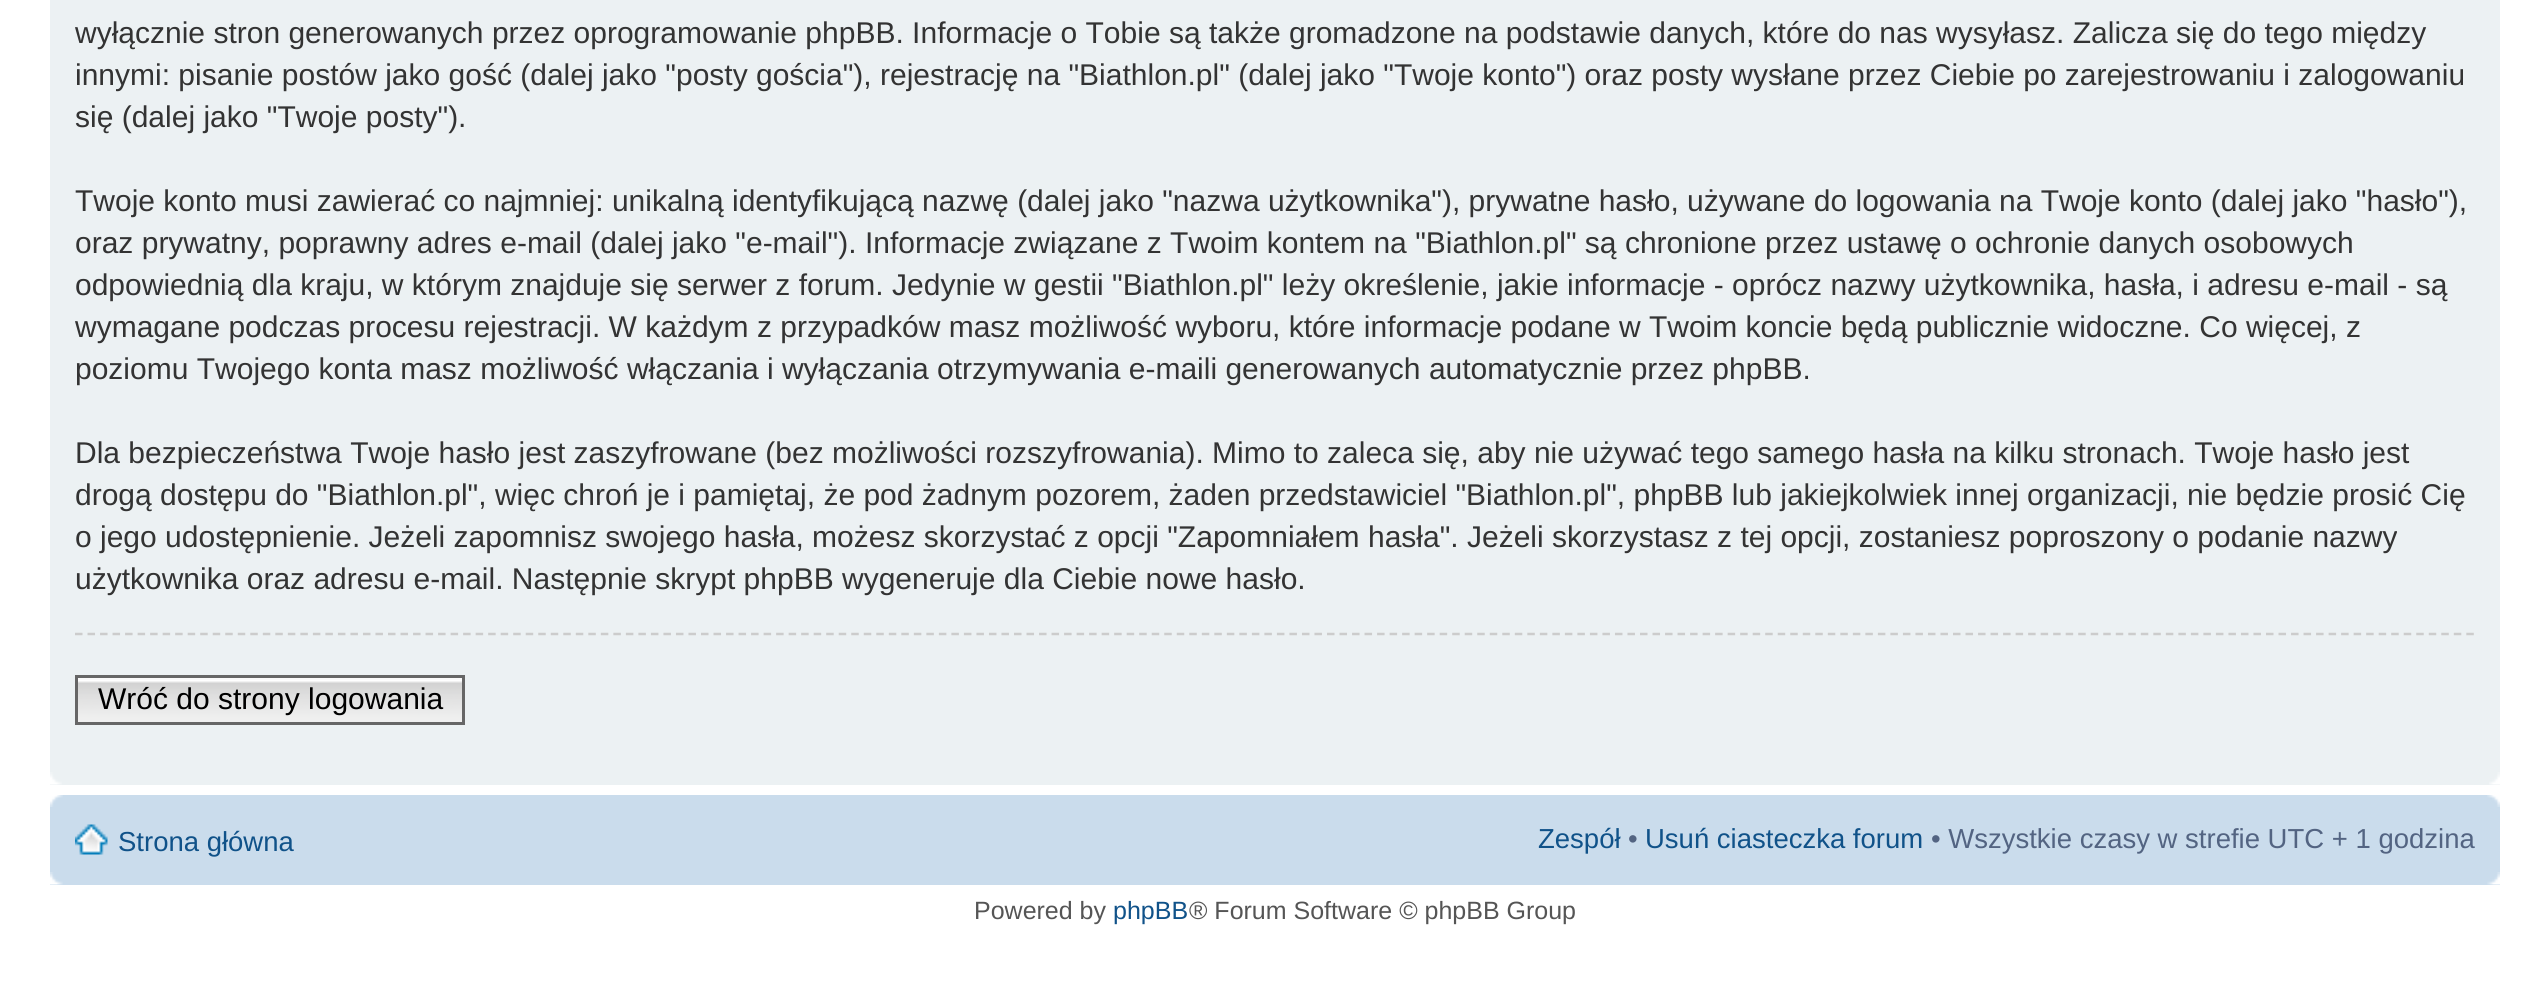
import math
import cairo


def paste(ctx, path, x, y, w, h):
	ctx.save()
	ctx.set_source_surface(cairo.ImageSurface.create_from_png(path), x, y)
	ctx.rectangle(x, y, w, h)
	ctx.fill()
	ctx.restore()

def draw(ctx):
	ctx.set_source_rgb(1, 1, 1)
	ctx.paint()
	ctx.set_source_rgb(0.925, 0.945, 0.953)
	ctx.rectangle(50, 0, 2450, 785)
	ctx.fill()
	ctx.select_font_face('Liberation Sans')
	ctx.set_font_size(30)
	ctx.set_source_rgb(0.2, 0.2, 0.2)
	for x, y, s in [
		(75, 43, 'wyłącznie stron generowanych przez oprogramowanie phpBB. Informacje o Tobie są także gromadzone na podstawie danych, które do nas wysyłasz. Zalicza się do tego między'),
		(75, 85, 'innymi: pisanie postów jako gość (dalej jako "posty gościa"), rejestrację na "Biathlon.pl" (dalej jako "Twoje konto") oraz posty wysłane przez Ciebie po zarejestrowaniu i zalogowaniu'),
		(75, 127, 'się (dalej jako "Twoje posty").'),
		(75, 211, 'Twoje konto musi zawierać co najmniej: unikalną identyfikującą nazwę (dalej jako "nazwa użytkownika"), prywatne hasło, używane do logowania na Twoje konto (dalej jako "hasło"),'),
		(75, 253, 'oraz prywatny, poprawny adres e-mail (dalej jako "e-mail"). Informacje związane z Twoim kontem na "Biathlon.pl" są chronione przez ustawę o ochronie danych osobowych'),
		(75, 295, 'odpowiednią dla kraju, w którym znajduje się serwer z forum. Jedynie w gestii "Biathlon.pl" leży określenie, jakie informacje - oprócz nazwy użytkownika, hasła, i adresu e-mail - są'),
		(75, 337, 'wymagane podczas procesu rejestracji. W każdym z przypadków masz możliwość wyboru, które informacje podane w Twoim koncie będą publicznie widoczne. Co więcej, z'),
		(75, 379, 'poziomu Twojego konta masz możliwość włączania i wyłączania otrzymywania e-maili generowanych automatycznie przez phpBB.'),
		(75, 463, 'Dla bezpieczeństwa Twoje hasło jest zaszyfrowane (bez możliwości rozszyfrowania). Mimo to zaleca się, aby nie używać tego samego hasła na kilku stronach. Twoje hasło jest'),
		(75, 505, 'drogą dostępu do "Biathlon.pl", więc chroń je i pamiętaj, że pod żadnym pozorem, żaden przedstawiciel "Biathlon.pl", phpBB lub jakiejkolwiek innej organizacji, nie będzie prosić Cię'),
		(75, 547, 'o jego udostępnienie. Jeżeli zapomnisz swojego hasła, możesz skorzystać z opcji "Zapomniałem hasła". Jeżeli skorzystasz z tej opcji, zostaniesz poproszony o podanie nazwy'),
		(75, 589, 'użytkownika oraz adresu e-mail. Następnie skrypt phpBB wygeneruje dla Ciebie nowe hasło.'),
	]:
		ctx.move_to(x, y)
		ctx.show_text(s)
	ctx.new_path()
	ctx.move_to(75, 634)
	ctx.line_to(2475, 634)
	ctx.set_source_rgb(0.8, 0.8, 0.8)
	ctx.set_line_width(2.5)
	ctx.set_dash([7.5, 5.02])
	ctx.stroke()
	paste(ctx, 'media/1.png', 78, 680, 384, 42)
	ctx.set_source_rgb(0.98, 0.98, 0.98)
	ctx.rectangle(78, 678, 384, 2)
	ctx.fill()
	ctx.rectangle(76.5, 676.5, 387, 47)
	ctx.set_source_rgb(0.4, 0.4, 0.4)
	ctx.set_line_width(3)
	ctx.set_dash([])
	ctx.stroke()
	ctx.set_source_rgb(0, 0, 0)
	ctx.move_to(98, 709)
	ctx.show_text('Wróć do strony logowania')
	paste(ctx, 'media/2.png', 50, 772, 12, 13)
	paste(ctx, 'media/3.png', 2489, 772, 11, 13)
	ctx.set_source_rgb(0.792, 0.863, 0.922)
	ctx.rectangle(50, 795, 2450, 90)
	ctx.fill()
	paste(ctx, 'media/4.png', 50, 795, 13, 12)
	paste(ctx, 'media/5.png', 2487, 795, 13, 12)
	paste(ctx, 'media/6.png', 75, 824, 33, 31)
	ctx.set_font_size(27.5)
	ctx.set_source_rgb(0.063, 0.322, 0.537)
	ctx.move_to(118, 851)
	ctx.show_text('Strona główna')
	ctx.move_to(1538, 848)
	ctx.show_text('Zespół')
	ctx.set_source_rgb(0.325, 0.392, 0.51)
	ctx.move_to(1628, 848)
	ctx.show_text('•')
	ctx.set_source_rgb(0.063, 0.322, 0.537)
	ctx.move_to(1645, 848)
	ctx.show_text('Usuń ciasteczka forum')
	ctx.set_source_rgb(0.325, 0.392, 0.51)
	ctx.move_to(1931, 848)
	ctx.show_text('• Wszystkie czasy w strefie UTC + 1 godzina')
	paste(ctx, 'media/7.png', 50, 872, 13, 13)
	paste(ctx, 'media/8.png', 2487, 872, 13, 13)
	ctx.set_font_size(25)
	ctx.set_source_rgb(0.333, 0.333, 0.333)
	ctx.move_to(974, 919)
	ctx.show_text('Powered by')
	ctx.set_source_rgb(0.063, 0.322, 0.537)
	ctx.move_to(1113, 919)
	ctx.show_text('phpBB')
	ctx.set_source_rgb(0.333, 0.333, 0.333)
	ctx.move_to(1189, 919)
	ctx.show_text('® Forum Software © phpBB Group')


surface = cairo.ImageSurface(cairo.FORMAT_RGB24, 2548, 1006)
ctx = cairo.Context(surface)
options = cairo.FontOptions()
options.set_hint_metrics(cairo.HINT_METRICS_OFF)
options.set_hint_style(cairo.HINT_STYLE_NONE)
ctx.set_font_options(options)
ctx.set_miter_limit(4)
draw(ctx)
surface.write_to_png('image.png')
